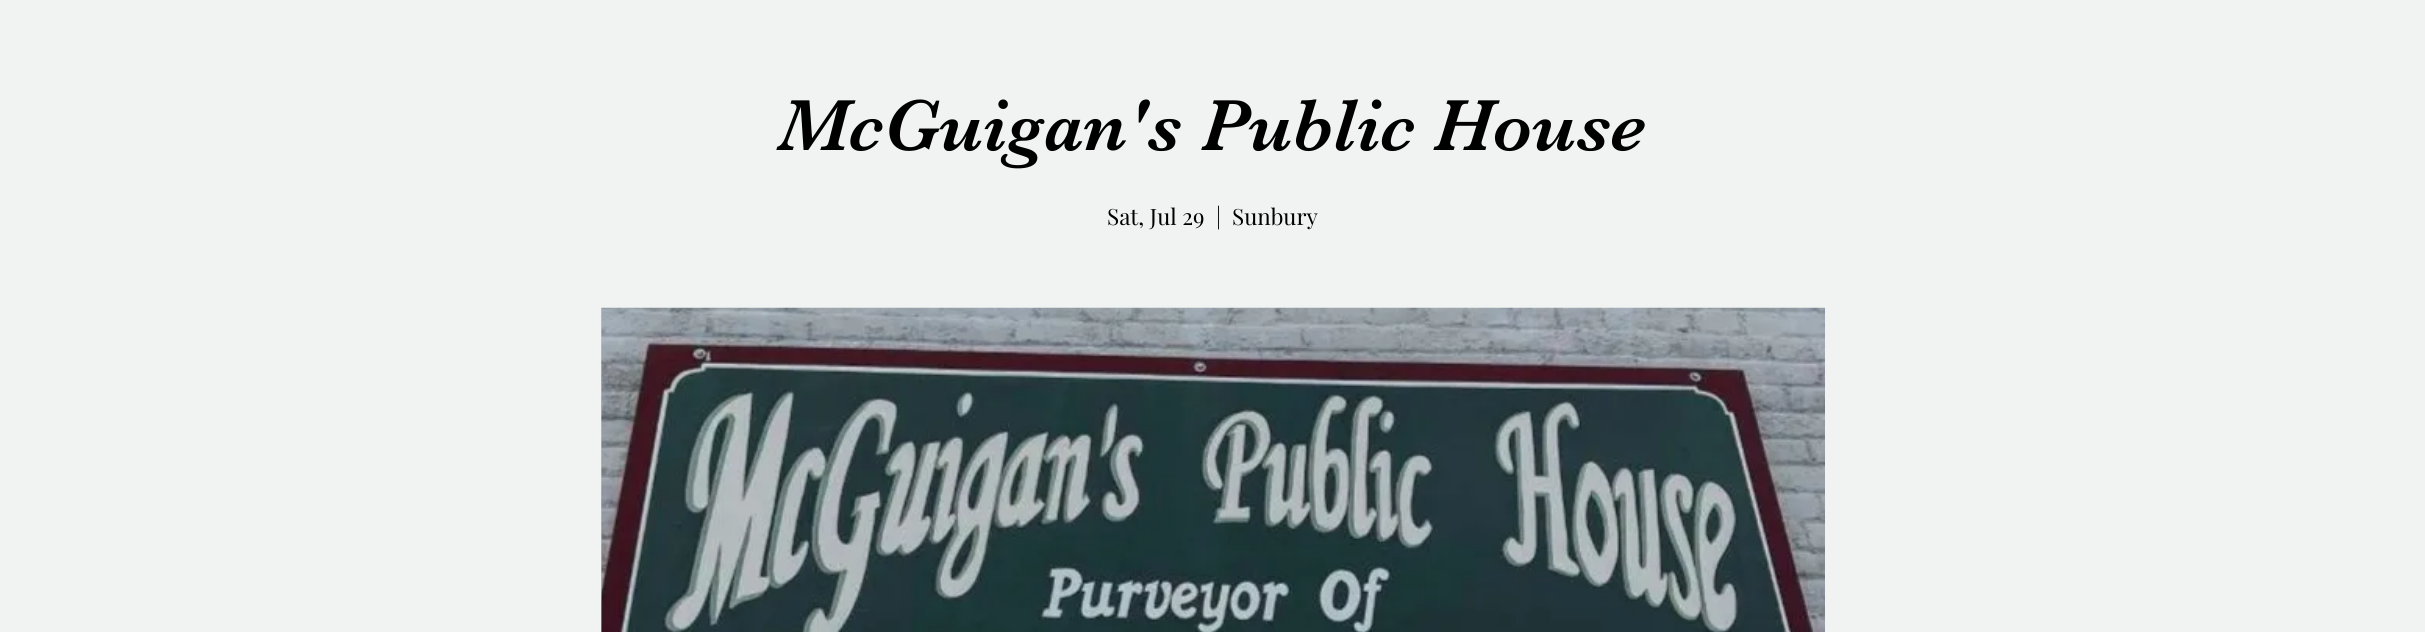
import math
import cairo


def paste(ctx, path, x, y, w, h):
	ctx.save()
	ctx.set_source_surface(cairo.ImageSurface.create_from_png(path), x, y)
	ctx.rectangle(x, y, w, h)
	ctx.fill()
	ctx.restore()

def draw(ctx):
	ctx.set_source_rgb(0.941, 0.953, 0.949)
	ctx.paint()
	ctx.select_font_face('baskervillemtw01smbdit')
	ctx.set_font_size(75)
	ctx.set_source_rgb(0, 0, 0)
	ctx.move_to(778, 150)
	ctx.show_text('McGuigan\'s Public House')
	ctx.select_font_face('Playfair Display')
	ctx.set_font_size(22.5)
	for x, y, s in [
		(1107, 225, 'Sat, Jul 29'),
		(1216, 225, '|'),
		(1232, 225, 'Sunbury'),
	]:
		ctx.move_to(x, y)
		ctx.show_text(s)
	ctx.set_source_rgb(0.776, 0.824, 0.831)
	ctx.rectangle(601, 308, 1, 324)
	ctx.fill()
	paste(ctx, 'media/1.png', 601, 307, 1224, 325)


surface = cairo.ImageSurface(cairo.FORMAT_RGB24, 2425, 632)
ctx = cairo.Context(surface)
options = cairo.FontOptions()
options.set_hint_metrics(cairo.HINT_METRICS_OFF)
options.set_hint_style(cairo.HINT_STYLE_NONE)
ctx.set_font_options(options)
ctx.set_miter_limit(4)
draw(ctx)
surface.write_to_png('image.png')
